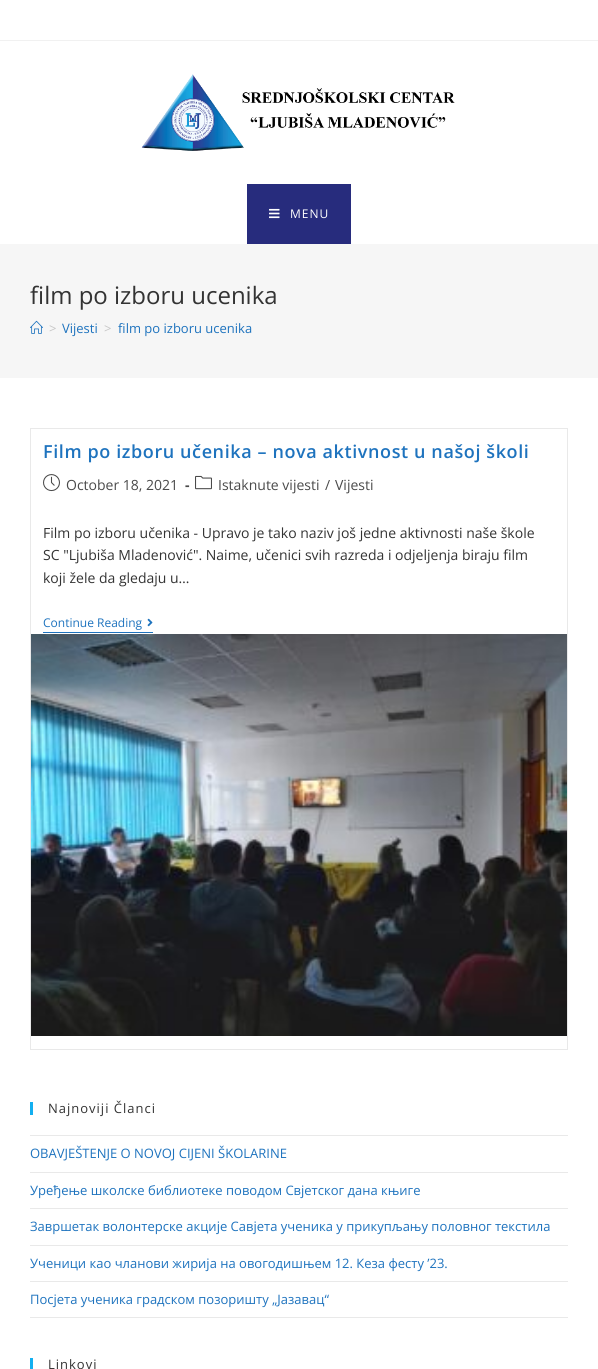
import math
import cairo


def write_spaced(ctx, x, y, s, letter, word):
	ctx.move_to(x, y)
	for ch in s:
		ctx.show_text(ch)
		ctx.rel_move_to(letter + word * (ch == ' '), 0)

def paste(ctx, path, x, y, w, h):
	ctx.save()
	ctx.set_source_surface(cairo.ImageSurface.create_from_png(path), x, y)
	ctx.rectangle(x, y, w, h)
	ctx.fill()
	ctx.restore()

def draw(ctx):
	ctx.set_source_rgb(1, 1, 1)
	ctx.paint()
	ctx.set_source_rgb(0.945, 0.945, 0.945)
	ctx.rectangle(0, 40, 598, 1)
	ctx.fill()
	paste(ctx, 'media/1.png', 141, 74, 314, 77)
	ctx.set_source_rgb(0.153, 0.173, 0.49)
	ctx.rectangle(247, 184, 104, 60)
	ctx.fill()
	paste(ctx, 'media/2.png', 269, 208, 11, 11)
	ctx.select_font_face('Open Sans')
	ctx.set_font_size(12)
	ctx.set_source_rgb(1, 1, 1)
	write_spaced(ctx, 290, 218, 'MENU', 1, 0)
	ctx.set_source_rgb(0.961, 0.961, 0.961)
	ctx.rectangle(0, 244, 598, 134)
	ctx.fill()
	ctx.set_font_size(24)
	ctx.set_source_rgb(0.2, 0.2, 0.2)
	ctx.move_to(30, 304)
	ctx.show_text('film po izboru ucenika')
	paste(ctx, 'media/3.png', 30, 320, 13, 14)
	ctx.set_font_size(13)
	ctx.set_source_rgb(0.776, 0.776, 0.776)
	ctx.move_to(49, 333)
	ctx.show_text('>')
	ctx.set_source_rgb(0.118, 0.451, 0.745)
	ctx.move_to(62, 333)
	ctx.show_text('Vijesti')
	ctx.set_source_rgb(0.776, 0.776, 0.776)
	ctx.move_to(104, 333)
	ctx.show_text('>')
	ctx.set_source_rgb(0.118, 0.451, 0.745)
	ctx.move_to(118, 333)
	ctx.show_text('film po izboru ucenika')
	ctx.rectangle(30.5, 428.5, 537, 621)
	ctx.set_source_rgb(0.914, 0.914, 0.914)
	ctx.set_line_width(1)
	ctx.stroke()
	ctx.select_font_face('Open Sans SemiBold')
	ctx.set_font_size(18)
	ctx.set_source_rgb(0.118, 0.451, 0.745)
	write_spaced(ctx, 43, 458, 'Film po izboru učenika – nova aktivnost u našoj školi', 0.6, 0)
	paste(ctx, 'media/4.png', 43, 474, 17, 18)
	ctx.select_font_face('Open Sans')
	ctx.set_font_size(14)
	ctx.set_source_rgb(0.29, 0.29, 0.29)
	ctx.move_to(66, 490)
	ctx.show_text('October 18, 2021')
	ctx.select_font_face('Open Sans', cairo.FONT_SLANT_NORMAL, cairo.FONT_WEIGHT_BOLD)
	ctx.move_to(185, 490)
	ctx.show_text('-')
	paste(ctx, 'media/5.png', 195, 475, 17, 15)
	ctx.select_font_face('Open Sans')
	for x, y, s in [
		(218, 490, 'Istaknute vijesti'),
		(325, 490, '/'),
		(335, 490, 'Vijesti'),
	]:
		ctx.move_to(x, y)
		ctx.show_text(s)
	ctx.set_source_rgb(0.2, 0.2, 0.2)
	for x, y, s in [
		(43, 538, 'Film po izboru učenika - Upravo je tako naziv još jedne aktivnosti naše škole'),
		(43, 560, 'SC "Ljubiša Mladenović". Naime, učenici svih razreda i odjeljenja biraju film'),
		(43, 583, 'koji žele da gledaju u…'),
	]:
		ctx.move_to(x, y)
		ctx.show_text(s)
	ctx.set_source_rgb(0.118, 0.451, 0.745)
	ctx.rectangle(43, 632, 110, 1)
	ctx.fill()
	ctx.set_font_size(12)
	ctx.move_to(43, 627)
	ctx.show_text('Continue Reading')
	paste(ctx, 'media/6.png', 147, 618, 6, 9)
	paste(ctx, 'media/7.png', 31, 634, 536, 402)
	ctx.set_source_rgb(0.075, 0.686, 0.941)
	ctx.rectangle(30, 1102, 3, 13)
	ctx.fill()
	ctx.set_font_size(13)
	ctx.set_source_rgb(0.2, 0.2, 0.2)
	write_spaced(ctx, 48, 1113, 'Najnoviji Članci', 1, 0)
	ctx.set_source_rgb(0.914, 0.914, 0.914)
	ctx.rectangle(30, 1135, 538, 1)
	ctx.fill()
	ctx.rectangle(30, 1172, 538, 1)
	ctx.fill()
	ctx.set_source_rgb(0.118, 0.451, 0.745)
	ctx.move_to(30, 1158)
	ctx.show_text('OBAVJEŠTENJE O NOVOJ CIJENI ŠKOLARINE')
	ctx.set_source_rgb(0.914, 0.914, 0.914)
	ctx.rectangle(30, 1208, 538, 1)
	ctx.fill()
	ctx.set_source_rgb(0.118, 0.451, 0.745)
	ctx.move_to(30, 1195)
	ctx.show_text('Уређење школске библиотеке поводом Свјетског дана књиге')
	ctx.set_source_rgb(0.914, 0.914, 0.914)
	ctx.rectangle(30, 1245, 538, 1)
	ctx.fill()
	ctx.set_source_rgb(0.118, 0.451, 0.745)
	ctx.move_to(30, 1231)
	ctx.show_text('Завршетак волонтерске акције Савјета ученика у прикупљању половног текстила')
	ctx.set_source_rgb(0.914, 0.914, 0.914)
	ctx.rectangle(30, 1281, 538, 1)
	ctx.fill()
	ctx.set_source_rgb(0.118, 0.451, 0.745)
	ctx.move_to(30, 1268)
	ctx.show_text('Ученици као чланови жирија на овогодишњем 12. Кеза фесту ’23.')
	ctx.set_source_rgb(0.914, 0.914, 0.914)
	ctx.rectangle(30, 1317, 538, 1)
	ctx.fill()
	ctx.set_source_rgb(0.118, 0.451, 0.745)
	ctx.move_to(30, 1304)
	ctx.show_text('Посјета ученика градском позоришту „Јазавац“')
	ctx.set_source_rgb(0.075, 0.686, 0.941)
	ctx.rectangle(30, 1358, 3, 11)
	ctx.fill()
	ctx.set_source_rgb(0.2, 0.2, 0.2)
	write_spaced(ctx, 48, 1369, 'Linkovi', 1, 0)


surface = cairo.ImageSurface(cairo.FORMAT_RGB24, 598, 1369)
ctx = cairo.Context(surface)
options = cairo.FontOptions()
options.set_hint_metrics(cairo.HINT_METRICS_OFF)
options.set_hint_style(cairo.HINT_STYLE_NONE)
ctx.set_font_options(options)
ctx.set_miter_limit(4)
draw(ctx)
surface.write_to_png('image.png')
